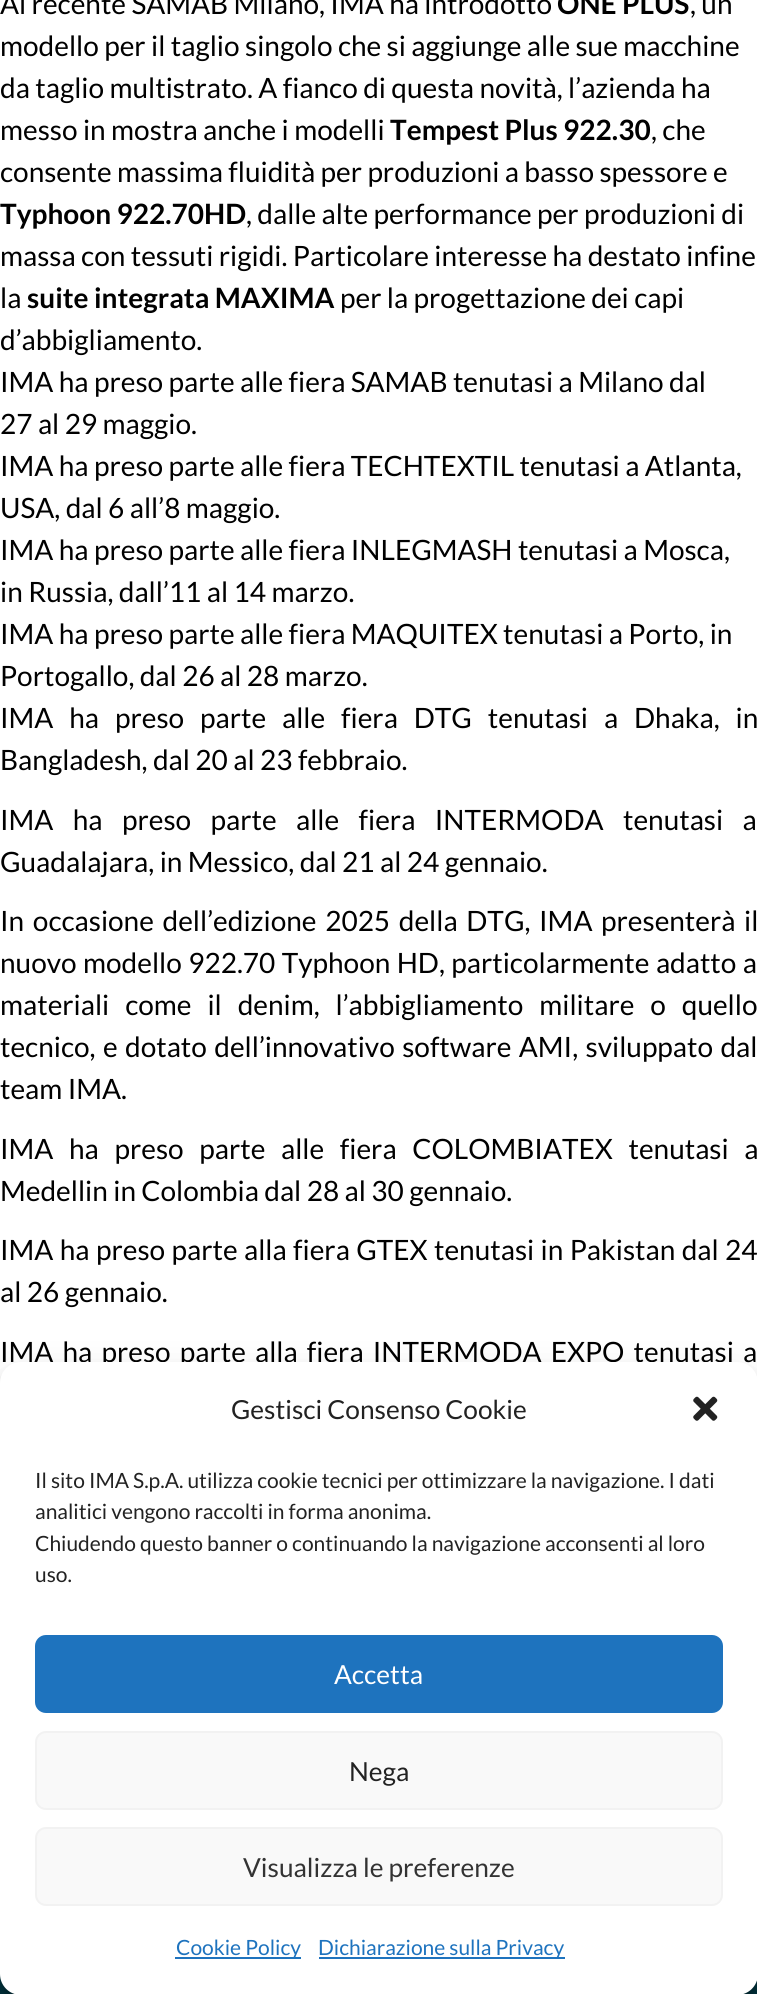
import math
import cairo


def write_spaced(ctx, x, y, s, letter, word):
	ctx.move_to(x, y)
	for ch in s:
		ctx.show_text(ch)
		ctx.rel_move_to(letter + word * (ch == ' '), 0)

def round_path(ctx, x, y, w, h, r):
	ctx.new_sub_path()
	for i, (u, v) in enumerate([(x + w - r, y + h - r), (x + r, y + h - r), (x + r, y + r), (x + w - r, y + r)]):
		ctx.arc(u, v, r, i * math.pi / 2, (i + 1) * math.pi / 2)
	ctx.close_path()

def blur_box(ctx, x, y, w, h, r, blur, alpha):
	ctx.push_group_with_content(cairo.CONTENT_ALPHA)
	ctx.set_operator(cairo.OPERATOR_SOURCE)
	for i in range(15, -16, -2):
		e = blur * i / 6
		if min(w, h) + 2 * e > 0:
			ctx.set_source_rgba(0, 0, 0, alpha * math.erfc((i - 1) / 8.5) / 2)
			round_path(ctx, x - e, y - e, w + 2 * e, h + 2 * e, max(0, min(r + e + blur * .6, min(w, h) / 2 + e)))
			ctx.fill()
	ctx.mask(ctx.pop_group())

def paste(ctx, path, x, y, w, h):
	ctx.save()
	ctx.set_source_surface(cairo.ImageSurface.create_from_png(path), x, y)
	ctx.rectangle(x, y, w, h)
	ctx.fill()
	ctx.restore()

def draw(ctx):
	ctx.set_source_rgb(1, 1, 1)
	ctx.paint()
	ctx.select_font_face('Lato')
	ctx.set_font_size(28)
	ctx.set_source_rgb(0, 0, 0)
	ctx.move_to(0, 14)
	ctx.show_text('Al recente SAMAB Milano, IMA ha introdotto')
	ctx.select_font_face('Lato', cairo.FONT_SLANT_NORMAL, cairo.FONT_WEIGHT_BOLD)
	ctx.move_to(557, 14)
	ctx.show_text('ONE PLUS')
	ctx.select_font_face('Lato')
	for x, y, s in [
		(690, 14, ', un'),
		(0, 56, 'modello per il taglio singolo che si aggiunge alle sue macchine'),
		(0, 98, 'da taglio multistrato. A fianco di questa novità, l’azienda ha'),
		(0, 140, 'messo in mostra anche i modelli'),
	]:
		ctx.move_to(x, y)
		ctx.show_text(s)
	ctx.select_font_face('Lato', cairo.FONT_SLANT_NORMAL, cairo.FONT_WEIGHT_BOLD)
	ctx.move_to(390, 140)
	ctx.show_text('Tempest Plus 922.30')
	ctx.select_font_face('Lato')
	ctx.move_to(651, 140)
	ctx.show_text(', che')
	ctx.move_to(0, 182)
	ctx.show_text('consente massima fluidità per produzioni a basso spessore e')
	ctx.select_font_face('Lato', cairo.FONT_SLANT_NORMAL, cairo.FONT_WEIGHT_BOLD)
	ctx.move_to(0, 224)
	ctx.show_text('Typhoon 922.70HD')
	ctx.select_font_face('Lato')
	for x, y, s in [
		(246, 224, ', dalle alte performance per produzioni di'),
		(0, 266, 'massa con tessuti rigidi. Particolare interesse ha destato infine'),
		(0, 308, 'la'),
	]:
		ctx.move_to(x, y)
		ctx.show_text(s)
	ctx.select_font_face('Lato', cairo.FONT_SLANT_NORMAL, cairo.FONT_WEIGHT_BOLD)
	ctx.move_to(27, 308)
	ctx.show_text('suite integrata MAXIMA')
	ctx.select_font_face('Lato')
	for x, y, s in [
		(340, 308, 'per la progettazione dei capi'),
		(0, 350, 'd’abbigliamento.'),
		(0, 392, 'IMA ha preso parte alle fiera SAMAB tenutasi a Milano dal'),
		(0, 434, '27 al 29 maggio.'),
		(0, 476, 'IMA ha preso parte alle fiera TECHTEXTIL tenutasi a Atlanta,'),
		(0, 518, 'USA, dal 6 all’8 maggio.'),
		(0, 560, 'IMA ha preso parte alle fiera INLEGMASH tenutasi a Mosca,'),
		(0, 602, 'in Russia, dall’11 al 14 marzo.'),
		(0, 644, 'IMA ha preso parte alle fiera MAQUITEX tenutasi a Porto, in'),
		(0, 686, 'Portogallo, dal 26 al 28 marzo.'),
	]:
		ctx.move_to(x, y)
		ctx.show_text(s)
	write_spaced(ctx, 0, 728, 'IMA ha preso parte alle fiera DTG tenutasi a Dhaka, in', 0, 10.5)
	ctx.move_to(0, 770)
	ctx.show_text('Bangladesh, dal 20 al 23 febbraio.')
	write_spaced(ctx, 0, 830, 'IMA ha preso parte alle fiera INTERMODA tenutasi a', 0, 14)
	ctx.move_to(0, 872)
	ctx.show_text('Guadalajara, in Messico, dal 21 al 24 gennaio.')
	write_spaced(ctx, 0, 931, 'In occasione dell’edizione 2025 della DTG, IMA presenterà il', 0, 3.25)
	write_spaced(ctx, 0, 973, 'nuovo modello 922.70 Typhoon HD, particolarmente adatto a', 0, 1)
	write_spaced(ctx, 0, 1015, 'materiali come il denim, l’abbigliamento militare o quello', 0, 10.5)
	write_spaced(ctx, 0, 1057, 'tecnico, e dotato dell’innovativo software AMI, sviluppato dal', 0, 2)
	ctx.move_to(0, 1099)
	ctx.show_text('team IMA.')
	write_spaced(ctx, 0, 1159, 'IMA ha preso parte alle fiera COLOMBIATEX tenutasi a', 0, 10.25)
	ctx.move_to(0, 1201)
	ctx.show_text('Medellin in Colombia dal 28 al 30 gennaio.')
	write_spaced(ctx, 0, 1260, 'IMA ha preso parte alla fiera GTEX tenutasi in Pakistan dal 24', 0, 1)
	ctx.move_to(0, 1302)
	ctx.show_text('al 26 gennaio.')
	write_spaced(ctx, 0, 1362, 'IMA ha preso parte alla fiera INTERMODA EXPO tenutasi a', 0, 3.75)
	ctx.set_source_rgb(0, 0.208, 0.251)
	ctx.rectangle(0, 1974, 757, 20)
	ctx.fill()
	ctx.set_source_rgb(0, 0, 0)
	blur_box(ctx, 0, 1372, 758, 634, 21, 5, 0.23)
	blur_box(ctx, 0, 1379, 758, 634, 21, 17.5, 0.19)
	ctx.set_source_rgb(1, 1, 1)
	round_path(ctx, 0, 1362, 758, 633, 21)
	ctx.fill()
	ctx.set_font_size(26.25)
	ctx.set_source_rgb(0.133, 0.133, 0.133)
	ctx.move_to(231, 1419)
	ctx.show_text('Gestisci Consenso Cookie')
	paste(ctx, 'media/1.png', 693, 1396, 25, 25)
	ctx.set_font_size(21)
	for x, y, s in [
		(35, 1488, 'Il sito IMA S.p.A. utilizza cookie tecnici per ottimizzare la navigazione. I dati'),
		(35, 1519, 'analitici vengono raccolti in forma anonima.'),
		(35, 1551, 'Chiudendo questo banner o continuando la navigazione acconsenti al loro'),
		(35, 1582, 'uso.'),
	]:
		ctx.move_to(x, y)
		ctx.show_text(s)
	ctx.set_source_rgb(0.118, 0.451, 0.745)
	round_path(ctx, 36, 1636, 686, 76, 10)
	ctx.fill_preserve()
	ctx.stroke()
	ctx.set_font_size(26.25)
	ctx.set_source_rgb(1, 1, 1)
	ctx.move_to(334, 1684)
	ctx.show_text('Accetta')
	ctx.set_source_rgb(0.976, 0.976, 0.976)
	round_path(ctx, 36, 1732, 686, 77, 10)
	ctx.fill_preserve()
	ctx.set_source_rgb(0.949, 0.949, 0.949)
	ctx.stroke()
	ctx.set_source_rgb(0.133, 0.133, 0.133)
	ctx.move_to(349, 1781)
	ctx.show_text('Nega')
	ctx.set_source_rgb(0.976, 0.976, 0.976)
	round_path(ctx, 36, 1828, 686, 77, 10)
	ctx.fill_preserve()
	ctx.set_source_rgb(0.949, 0.949, 0.949)
	ctx.stroke()
	ctx.set_source_rgb(0.2, 0.2, 0.2)
	ctx.move_to(243, 1877)
	ctx.show_text('Visualizza le preferenze')
	ctx.set_source_rgb(0.118, 0.451, 0.745)
	ctx.rectangle(175, 1957, 126, 2)
	ctx.fill()
	ctx.set_font_size(21)
	ctx.move_to(176, 1955)
	ctx.show_text('Cookie Policy')
	ctx.rectangle(319, 1957, 246, 2)
	ctx.fill()
	ctx.move_to(318, 1955)
	ctx.show_text('Dichiarazione sulla Privacy')


surface = cairo.ImageSurface(cairo.FORMAT_RGB24, 757, 1994)
ctx = cairo.Context(surface)
options = cairo.FontOptions()
options.set_hint_metrics(cairo.HINT_METRICS_OFF)
options.set_hint_style(cairo.HINT_STYLE_NONE)
ctx.set_font_options(options)
ctx.set_miter_limit(4)
draw(ctx)
surface.write_to_png('image.png')
